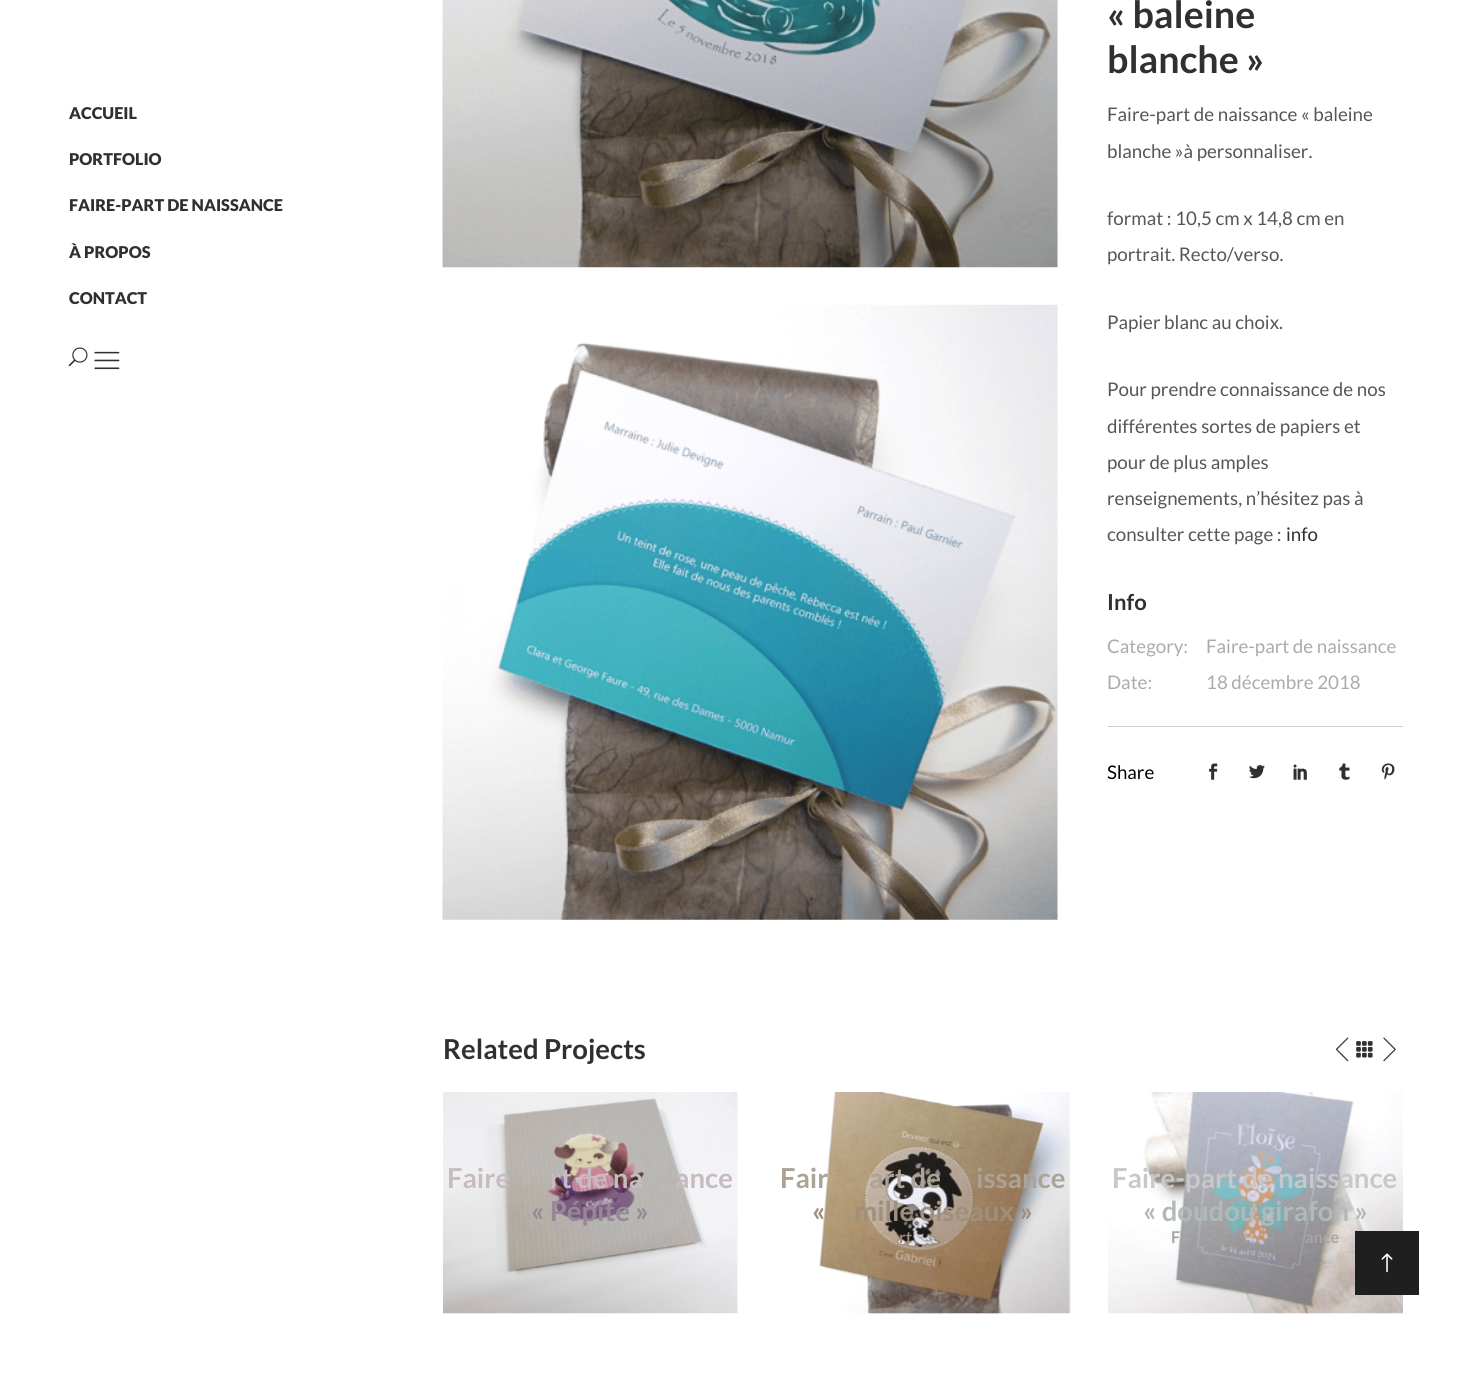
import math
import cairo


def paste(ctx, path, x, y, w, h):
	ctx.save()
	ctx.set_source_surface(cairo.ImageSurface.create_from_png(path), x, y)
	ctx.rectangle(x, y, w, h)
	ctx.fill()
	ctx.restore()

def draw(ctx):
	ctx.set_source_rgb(1, 1, 1)
	ctx.paint()
	ctx.select_font_face('Lato Black')
	ctx.set_font_size(16.25)
	ctx.set_source_rgb(0.188, 0.188, 0.188)
	for x, y, s in [
		(69, 119, 'ACCUEIL'),
		(69, 165, 'PORTFOLIO'),
		(69, 211, 'FAIRE-PART DE NAISSANCE'),
		(69, 258, 'À PROPOS'),
		(69, 304, 'CONTACT'),
	]:
		ctx.move_to(x, y)
		ctx.show_text(s)
	paste(ctx, 'media/1.png', 68, 347, 20, 20)
	paste(ctx, 'media/2.png', 94, 351, 26, 19)
	paste(ctx, 'media/3.png', 442, 0, 616, 268)
	paste(ctx, 'media/4.png', 442, 304, 616, 616)
	ctx.select_font_face('Lato', cairo.FONT_SLANT_NORMAL, cairo.FONT_WEIGHT_BOLD)
	ctx.set_font_size(37.5)
	ctx.move_to(1107, 28)
	ctx.show_text('« baleine')
	ctx.move_to(1107, 73)
	ctx.show_text('blanche »')
	ctx.select_font_face('Lato')
	ctx.set_font_size(18.75)
	ctx.set_source_rgb(0.337, 0.337, 0.337)
	for x, y, s in [
		(1107, 121, 'Faire-part de naissance « baleine'),
		(1107, 158, 'blanche »à personnaliser.'),
		(1107, 225, 'format : 10,5 cm x 14,8 cm en'),
		(1107, 261, 'portrait. Recto/verso.'),
		(1107, 329, 'Papier blanc au choix.'),
		(1107, 396, 'Pour prendre connaissance de nos'),
		(1107, 433, 'différentes sortes de papiers et'),
		(1107, 469, 'pour de plus amples'),
		(1107, 505, 'renseignements, n’hésitez pas à'),
		(1107, 541, 'consulter cette page :'),
	]:
		ctx.move_to(x, y)
		ctx.show_text(s)
	ctx.set_source_rgb(0.188, 0.188, 0.188)
	ctx.move_to(1286, 541)
	ctx.show_text('info')
	ctx.select_font_face('Lato', cairo.FONT_SLANT_NORMAL, cairo.FONT_WEIGHT_BOLD)
	ctx.set_font_size(22)
	ctx.move_to(1107, 610)
	ctx.show_text('Info')
	ctx.select_font_face('Lato')
	ctx.set_font_size(18.75)
	ctx.set_source_rgb(0.671, 0.671, 0.671)
	for x, y, s in [
		(1107, 653, 'Category:'),
		(1206, 653, 'Faire-part de naissance'),
		(1107, 689, 'Date:'),
		(1206, 689, '18 décembre 2018'),
	]:
		ctx.move_to(x, y)
		ctx.show_text(s)
	ctx.set_source_rgb(0.804, 0.804, 0.804)
	ctx.rectangle(1108, 726, 295, 1)
	ctx.fill()
	ctx.set_source_rgb(0, 0, 0)
	ctx.move_to(1107, 779)
	ctx.show_text('Share')
	paste(ctx, 'media/5.png', 1209, 763, 9, 17)
	paste(ctx, 'media/6.png', 1249, 765, 16, 14)
	paste(ctx, 'media/7.png', 1293, 764, 14, 16)
	paste(ctx, 'media/8.png', 1339, 763, 11, 17)
	paste(ctx, 'media/9.png', 1381, 763, 14, 17)
	ctx.select_font_face('Lato', cairo.FONT_SLANT_NORMAL, cairo.FONT_WEIGHT_BOLD)
	ctx.set_font_size(27.5)
	ctx.set_source_rgb(0.188, 0.188, 0.188)
	ctx.move_to(443, 1059)
	ctx.show_text('Related Projects')
	paste(ctx, 'media/10.png', 1335, 1037, 14, 25)
	paste(ctx, 'media/11.png', 1356, 1041, 17, 17)
	paste(ctx, 'media/12.png', 1383, 1037, 13, 25)
	paste(ctx, 'media/13.png', 443, 1092, 295, 222)
	ctx.set_source_rgb(0.78, 0.733, 0.749)
	for x, y, s in [
		(447, 1188, 'Faire'),
		(550, 1188, 'rt de na'),
		(675, 1188, 'ance'),
	]:
		ctx.move_to(x, y)
		ctx.show_text(s)
	ctx.set_source_rgb(0.596, 0.533, 0.592)
	ctx.move_to(531, 1221)
	ctx.show_text('« Pépite »')
	paste(ctx, 'media/14.png', 819, 1092, 252, 222)
	ctx.set_source_rgb(0.675, 0.635, 0.584)
	for x, y, s in [
		(780, 1188, 'Fair'),
		(869, 1188, 'art de'),
		(976, 1188, 'issance'),
	]:
		ctx.move_to(x, y)
		ctx.show_text(s)
	ctx.set_source_rgb(0.624, 0.561, 0.49)
	ctx.move_to(812, 1221)
	ctx.show_text('«')
	ctx.move_to(854, 1221)
	ctx.show_text('mille oiseaux »')
	ctx.set_font_size(16.25)
	ctx.set_source_rgb(0.624, 0.537, 0.443)
	ctx.move_to(899, 1243)
	ctx.show_text('rt')
	paste(ctx, 'media/15.png', 1108, 1092, 295, 222)
	ctx.set_font_size(27.5)
	ctx.set_source_rgb(0.776, 0.784, 0.792)
	ctx.move_to(1112, 1188)
	ctx.show_text('Faire-part de naissance')
	ctx.set_source_rgb(0.69, 0.729, 0.733)
	ctx.move_to(1143, 1221)
	ctx.show_text('« doudou girafon »')
	ctx.set_font_size(16.25)
	ctx.set_source_rgb(0.667, 0.647, 0.647)
	ctx.move_to(1171, 1243)
	ctx.show_text('F')
	ctx.move_to(1305, 1243)
	ctx.show_text('ance')
	ctx.set_source_rgb(0.122, 0.122, 0.122)
	ctx.rectangle(1355, 1231, 64, 64)
	ctx.fill()
	paste(ctx, 'media/16.png', 1381, 1253, 12, 20)


surface = cairo.ImageSurface(cairo.FORMAT_RGB24, 1482, 1376)
ctx = cairo.Context(surface)
options = cairo.FontOptions()
options.set_hint_metrics(cairo.HINT_METRICS_OFF)
options.set_hint_style(cairo.HINT_STYLE_NONE)
ctx.set_font_options(options)
ctx.set_miter_limit(4)
draw(ctx)
surface.write_to_png('image.png')
